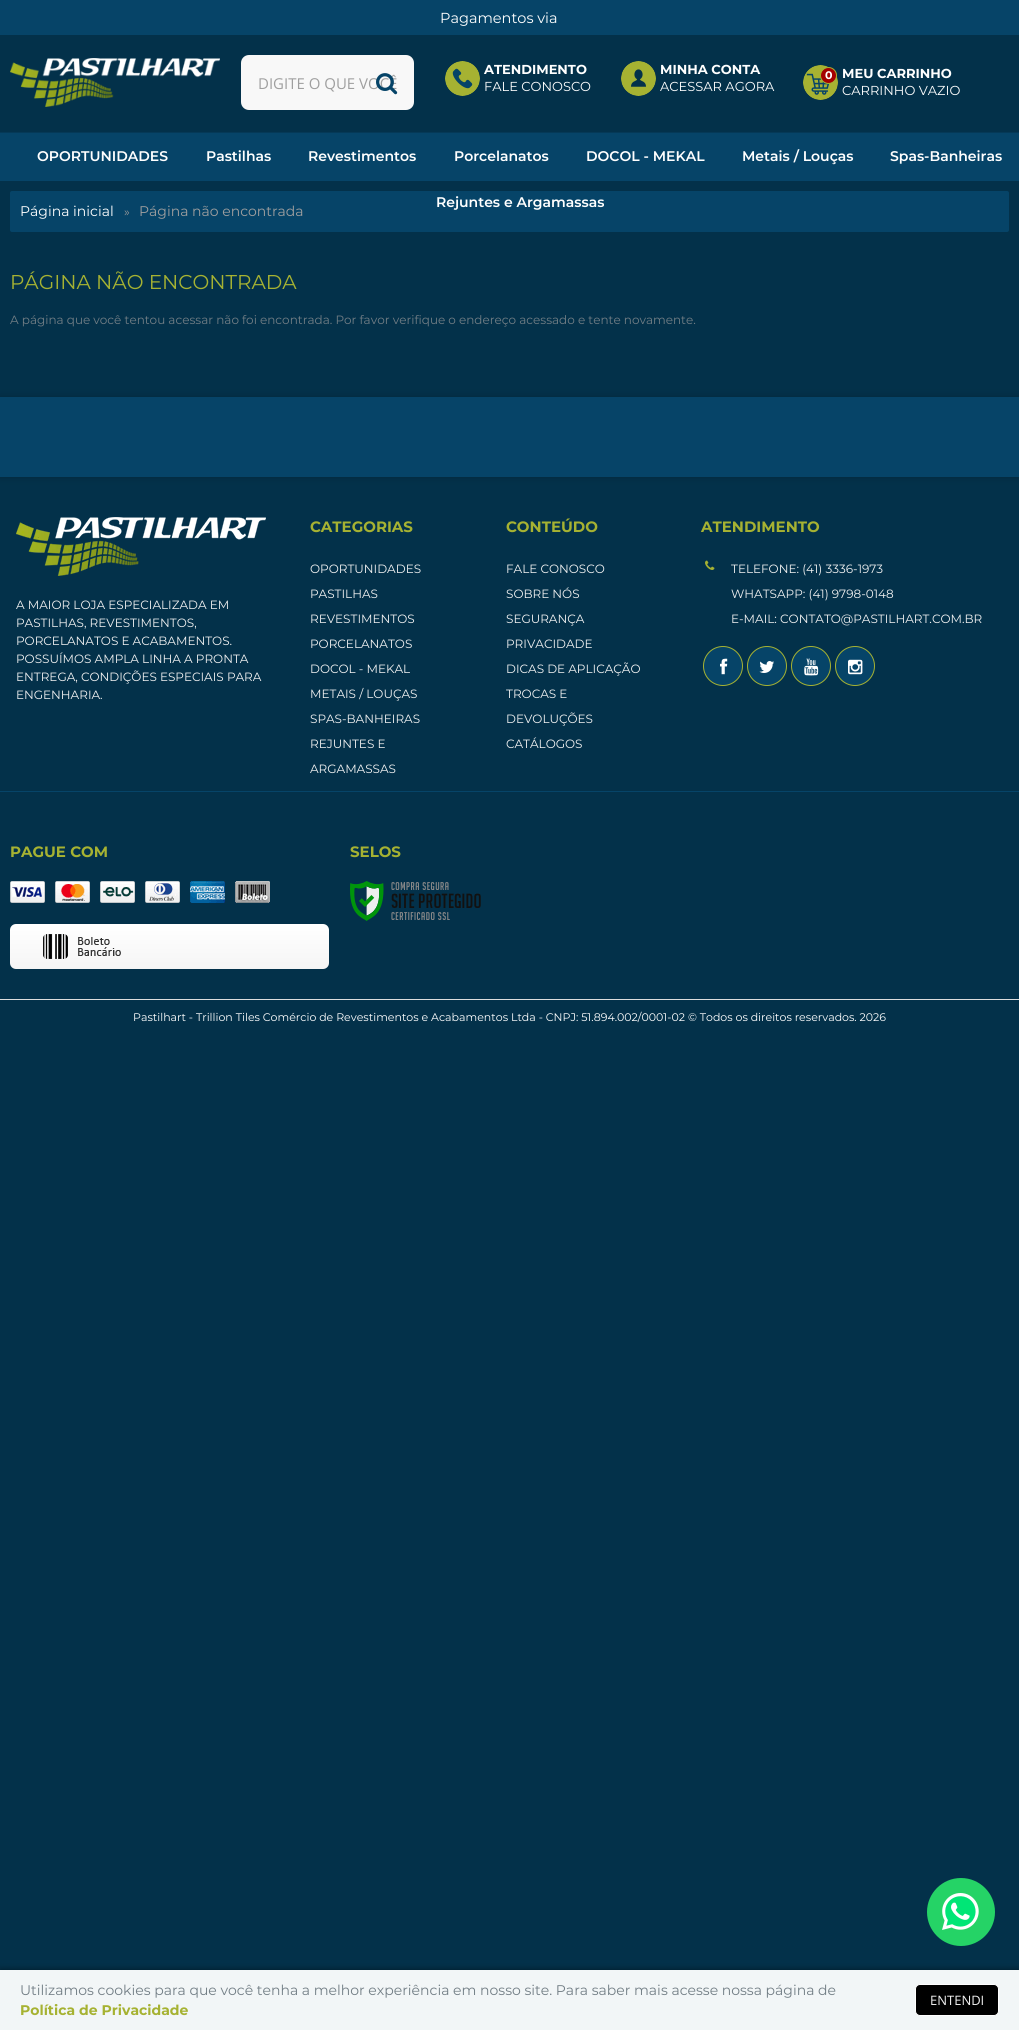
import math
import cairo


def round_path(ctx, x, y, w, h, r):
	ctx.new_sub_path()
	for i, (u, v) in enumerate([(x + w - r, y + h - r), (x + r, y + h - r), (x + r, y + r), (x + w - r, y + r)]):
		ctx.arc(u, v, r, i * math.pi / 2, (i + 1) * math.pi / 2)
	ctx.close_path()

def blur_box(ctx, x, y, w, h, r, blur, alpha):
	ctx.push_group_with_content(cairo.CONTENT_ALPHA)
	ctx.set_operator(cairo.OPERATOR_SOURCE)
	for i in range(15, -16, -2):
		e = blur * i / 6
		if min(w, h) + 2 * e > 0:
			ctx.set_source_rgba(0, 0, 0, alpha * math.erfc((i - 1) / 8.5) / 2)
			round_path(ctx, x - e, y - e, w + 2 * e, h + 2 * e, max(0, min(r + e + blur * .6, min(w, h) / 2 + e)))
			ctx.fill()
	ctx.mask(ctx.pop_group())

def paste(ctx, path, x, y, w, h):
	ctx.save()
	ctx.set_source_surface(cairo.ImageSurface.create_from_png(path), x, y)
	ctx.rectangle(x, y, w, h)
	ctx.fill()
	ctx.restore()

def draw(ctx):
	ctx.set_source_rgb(0.012, 0.192, 0.29)
	ctx.paint()
	ctx.set_source_rgb(0.024, 0.267, 0.408)
	ctx.rectangle(0, 0, 1019, 35)
	ctx.fill()
	ctx.select_font_face('Montserrat')
	ctx.set_font_size(14.5)
	ctx.set_source_rgb(1, 1, 1)
	ctx.move_to(440, 23)
	ctx.show_text('Pagamentos via')
	paste(ctx, 'media/1.png', 10, 58, 210, 49)
	ctx.set_source_rgb(0.969, 0.969, 0.969)
	round_path(ctx, 241, 55, 173, 55, 8)
	ctx.fill()
	ctx.select_font_face('Open Sans')
	ctx.set_font_size(15)
	ctx.set_source_rgb(0.624, 0.624, 0.624)
	ctx.move_to(258, 89)
	ctx.show_text('DIGITE O QUE VOCÊ')
	paste(ctx, 'media/2.png', 376, 73, 22, 22)
	paste(ctx, 'media/3.png', 445, 61, 35, 35)
	ctx.select_font_face('Montserrat', cairo.FONT_SLANT_NORMAL, cairo.FONT_WEIGHT_BOLD)
	ctx.set_font_size(13)
	ctx.set_source_rgb(1, 1, 1)
	ctx.move_to(484, 74)
	ctx.show_text('ATENDIMENTO')
	ctx.select_font_face('Montserrat')
	ctx.move_to(484, 91)
	ctx.show_text('FALE CONOSCO')
	paste(ctx, 'media/4.png', 621, 61, 35, 35)
	ctx.select_font_face('Montserrat', cairo.FONT_SLANT_NORMAL, cairo.FONT_WEIGHT_BOLD)
	ctx.move_to(660, 74)
	ctx.show_text('MINHA CONTA')
	ctx.select_font_face('Montserrat')
	ctx.move_to(660, 91)
	ctx.show_text('ACESSAR AGORA')
	paste(ctx, 'media/5.png', 803, 65, 35, 35)
	ctx.select_font_face('Montserrat', cairo.FONT_SLANT_NORMAL, cairo.FONT_WEIGHT_BOLD)
	ctx.move_to(842, 78)
	ctx.show_text('MEU CARRINHO')
	ctx.set_source_rgb(0.643, 0, 0)
	ctx.new_path()
	ctx.arc(828.5, 75.5, 8, 0, 2 * math.pi)
	ctx.fill_preserve()
	ctx.set_source_rgb(0.651, 0.698, 0.196)
	ctx.set_line_width(1)
	ctx.stroke()
	ctx.set_font_size(11)
	ctx.set_source_rgb(1, 1, 1)
	ctx.move_to(825, 79)
	ctx.show_text('0')
	ctx.select_font_face('Montserrat')
	ctx.set_font_size(13)
	ctx.move_to(842, 95)
	ctx.show_text('CARRINHO VAZIO')
	ctx.set_source_rgb(0.024, 0.267, 0.408)
	ctx.rectangle(0, 133, 1019, 48)
	ctx.fill()
	ctx.set_source_rgb(0.02, 0.224, 0.341)
	ctx.rectangle(0, 132, 1019, 1)
	ctx.fill()
	ctx.select_font_face('Montserrat SemiBold')
	ctx.set_font_size(14)
	ctx.set_source_rgb(1, 1, 1)
	for x, y, s in [
		(37, 161, 'OPORTUNIDADES'),
		(206, 161, 'Pastilhas'),
		(308, 161, 'Revestimentos'),
		(454, 161, 'Porcelanatos'),
		(586, 161, 'DOCOL - MEKAL'),
		(742, 161, 'Metais / Louças'),
		(890, 161, 'Spas-Banheiras'),
	]:
		ctx.move_to(x, y)
		ctx.show_text(s)
	ctx.set_source_rgb(0.024, 0.267, 0.408)
	round_path(ctx, 10, 191, 999, 41, 2)
	ctx.fill()
	ctx.set_source_rgb(1, 1, 1)
	ctx.move_to(436, 207)
	ctx.show_text('Rejuntes e Argamassas')
	ctx.select_font_face('Montserrat')
	ctx.move_to(20, 216)
	ctx.show_text('Página inicial')
	ctx.set_font_size(12)
	ctx.set_source_rgb(0.6, 0.6, 0.6)
	ctx.move_to(124, 216)
	ctx.show_text('»')
	ctx.set_font_size(14)
	ctx.set_source_rgb(0.624, 0.624, 0.624)
	ctx.move_to(139, 216)
	ctx.show_text('Página não encontrada')
	ctx.set_font_size(20)
	ctx.set_source_rgb(0.651, 0.698, 0.196)
	ctx.move_to(10, 289)
	ctx.show_text('PÁGINA NÃO ENCONTRADA')
	ctx.set_font_size(12)
	ctx.set_source_rgb(0.447, 0.494, 0.522)
	ctx.move_to(10, 324)
	ctx.show_text('A página que você tentou acessar não foi encontrada. Por favor verifique o endereço acessado e tente novamente.')
	ctx.set_source_rgb(0, 0, 0)
	blur_box(ctx, 0, 397, 1019, 80, 0, 4, 0.2)
	ctx.set_source_rgb(0.024, 0.267, 0.408)
	ctx.rectangle(0, 397, 1019, 80)
	ctx.fill()
	ctx.rectangle(0, 791, 1019, 1)
	ctx.fill()
	ctx.select_font_face('Montserrat', cairo.FONT_SLANT_NORMAL, cairo.FONT_WEIGHT_BOLD)
	ctx.set_font_size(15)
	ctx.set_source_rgb(0.651, 0.698, 0.196)
	ctx.move_to(310, 532)
	ctx.show_text('CATEGORIAS')
	ctx.select_font_face('Montserrat')
	ctx.set_font_size(12)
	ctx.set_source_rgb(0.949, 0.949, 0.949)
	for x, y, s in [
		(310, 573, 'OPORTUNIDADES'),
		(310, 598, 'PASTILHAS'),
		(310, 623, 'REVESTIMENTOS'),
		(310, 648, 'PORCELANATOS'),
		(310, 673, 'DOCOL - MEKAL'),
		(310, 698, 'METAIS / LOUÇAS'),
		(310, 723, 'SPAS-BANHEIRAS'),
		(310, 748, 'REJUNTES E'),
		(310, 773, 'ARGAMASSAS'),
	]:
		ctx.move_to(x, y)
		ctx.show_text(s)
	ctx.select_font_face('Montserrat', cairo.FONT_SLANT_NORMAL, cairo.FONT_WEIGHT_BOLD)
	ctx.set_font_size(15)
	ctx.set_source_rgb(0.651, 0.698, 0.196)
	ctx.move_to(506, 532)
	ctx.show_text('CONTEÚDO')
	ctx.select_font_face('Montserrat')
	ctx.set_font_size(12)
	ctx.set_source_rgb(0.949, 0.949, 0.949)
	for x, y, s in [
		(506, 573, 'FALE CONOSCO'),
		(506, 598, 'SOBRE NÓS'),
		(506, 623, 'SEGURANÇA'),
		(506, 648, 'PRIVACIDADE'),
		(506, 673, 'DICAS DE APLICAÇÃO'),
		(506, 698, 'TROCAS E'),
		(506, 723, 'DEVOLUÇÕES'),
		(506, 748, 'CATÁLOGOS'),
	]:
		ctx.move_to(x, y)
		ctx.show_text(s)
	ctx.select_font_face('Montserrat', cairo.FONT_SLANT_NORMAL, cairo.FONT_WEIGHT_BOLD)
	ctx.set_font_size(15)
	ctx.set_source_rgb(0.651, 0.698, 0.196)
	ctx.move_to(701, 532)
	ctx.show_text('ATENDIMENTO')
	paste(ctx, 'media/6.png', 705, 560, 10, 10)
	ctx.select_font_face('Montserrat')
	ctx.set_font_size(12)
	ctx.set_source_rgb(0.949, 0.949, 0.949)
	for x, y, s in [
		(731, 573, 'TELEFONE: (41) 3336-1973'),
		(731, 598, 'WHATSAPP: (41) 9798-0148'),
		(731, 623, 'E-MAIL: CONTATO@PASTILHART.COM.BR'),
	]:
		ctx.move_to(x, y)
		ctx.show_text(s)
	ctx.set_source_rgb(0.024, 0.267, 0.408)
	ctx.new_path()
	ctx.arc(723, 666, 19.5, 0, 2 * math.pi)
	ctx.fill_preserve()
	ctx.set_source_rgb(0.651, 0.698, 0.196)
	ctx.stroke()
	paste(ctx, 'media/7.png', 720, 658, 8, 17)
	ctx.set_source_rgb(0.024, 0.267, 0.408)
	ctx.arc(767, 666, 19.5, 0, 2 * math.pi)
	ctx.fill_preserve()
	ctx.set_source_rgb(0.651, 0.698, 0.196)
	ctx.stroke()
	paste(ctx, 'media/8.png', 759, 661, 15, 12)
	ctx.set_source_rgb(0.024, 0.267, 0.408)
	ctx.arc(811, 666, 19.5, 0, 2 * math.pi)
	ctx.fill_preserve()
	ctx.set_source_rgb(0.651, 0.698, 0.196)
	ctx.stroke()
	paste(ctx, 'media/9.png', 804, 658, 15, 18)
	ctx.set_source_rgb(0.024, 0.267, 0.408)
	ctx.arc(855, 666, 19.5, 0, 2 * math.pi)
	ctx.fill_preserve()
	ctx.set_source_rgb(0.651, 0.698, 0.196)
	ctx.stroke()
	paste(ctx, 'media/10.png', 848, 659, 15, 16)
	paste(ctx, 'media/11.png', 16, 517, 250, 59)
	ctx.set_source_rgb(0.949, 0.949, 0.949)
	for x, y, s in [
		(16, 609, 'A MAIOR LOJA ESPECIALIZADA EM'),
		(16, 627, 'PASTILHAS, REVESTIMENTOS,'),
		(16, 645, 'PORCELANATOS E ACABAMENTOS.'),
		(16, 663, 'POSSUÍMOS AMPLA LINHA A PRONTA'),
		(16, 681, 'ENTREGA, CONDIÇÕES ESPECIAIS PARA'),
		(16, 699, 'ENGENHARIA.'),
	]:
		ctx.move_to(x, y)
		ctx.show_text(s)
	ctx.select_font_face('Montserrat', cairo.FONT_SLANT_NORMAL, cairo.FONT_WEIGHT_BOLD)
	ctx.set_font_size(15)
	ctx.set_source_rgb(0.651, 0.698, 0.196)
	ctx.move_to(10, 857)
	ctx.show_text('PAGUE COM')
	paste(ctx, 'media/12.png', 10, 881, 35, 22)
	paste(ctx, 'media/13.png', 55, 881, 35, 22)
	paste(ctx, 'media/14.png', 100, 881, 35, 22)
	paste(ctx, 'media/15.png', 145, 881, 35, 22)
	paste(ctx, 'media/16.png', 190, 881, 35, 22)
	paste(ctx, 'media/17.png', 235, 881, 35, 22)
	gradient = cairo.LinearGradient(170, 924, 170, 969)
	gradient.add_color_stop_rgba(0, 1, 1, 1, 1)
	gradient.add_color_stop_rgba(1, 0.961, 0.961, 0.961, 1)
	ctx.set_source(gradient)
	round_path(ctx, 10, 924, 319, 45, 6)
	ctx.fill()
	paste(ctx, 'media/18.png', 43, 934, 78, 25)
	ctx.set_source_rgb(0.651, 0.698, 0.196)
	ctx.move_to(350, 857)
	ctx.show_text('SELOS')
	paste(ctx, 'media/19.png', 350, 881, 131, 40)
	ctx.set_source_rgb(0.867, 0.867, 0.867)
	ctx.rectangle(0, 999, 1019, 1)
	ctx.fill()
	ctx.select_font_face('Montserrat')
	ctx.set_font_size(11)
	ctx.set_source_rgb(1, 1, 1)
	ctx.move_to(133, 1021)
	ctx.show_text('Pastilhart - Trillion Tiles Comércio de Revestimentos e Acabamentos Ltda - CNPJ: 51.894.002/0001-02 © Todos os direitos reservados. 2026')
	ctx.set_source_rgb(0.145, 0.827, 0.4)
	ctx.new_path()
	ctx.arc(961, 1912, 34, 0, 2 * math.pi)
	ctx.fill()
	paste(ctx, 'media/20.png', 942, 1893, 37, 37)
	ctx.set_source_rgb(0, 0, 0)
	blur_box(ctx, 0, 1970, 1019, 60, 0, 3.5, 0.5)
	ctx.set_source_rgb(0.949, 0.961, 0.965)
	ctx.rectangle(0, 1970, 1019, 60)
	ctx.fill()
	ctx.set_font_size(14)
	ctx.set_source_rgb(0.447, 0.494, 0.522)
	ctx.move_to(20, 1995)
	ctx.show_text('Utilizamos cookies para que você tenha a melhor experiência em nosso site. Para saber mais acesse nossa página de')
	ctx.select_font_face('Montserrat', cairo.FONT_SLANT_NORMAL, cairo.FONT_WEIGHT_BOLD)
	ctx.set_source_rgb(0.651, 0.698, 0.196)
	ctx.move_to(20, 2015)
	ctx.show_text('Política de Privacidade')
	ctx.set_source_rgb(0, 0, 0)
	round_path(ctx, 915.5, 1984.5, 83, 31, 4.5)
	ctx.fill_preserve()
	ctx.set_source_rgb(1, 1, 1)
	ctx.stroke()
	ctx.select_font_face('Open Sans')
	ctx.set_font_size(13)
	ctx.set_source_rgb(0.949, 0.949, 0.949)
	ctx.move_to(930, 2005)
	ctx.show_text('ENTENDI')


surface = cairo.ImageSurface(cairo.FORMAT_RGB24, 1019, 2030)
ctx = cairo.Context(surface)
options = cairo.FontOptions()
options.set_hint_metrics(cairo.HINT_METRICS_OFF)
options.set_hint_style(cairo.HINT_STYLE_NONE)
ctx.set_font_options(options)
ctx.set_miter_limit(4)
draw(ctx)
surface.write_to_png('image.png')
